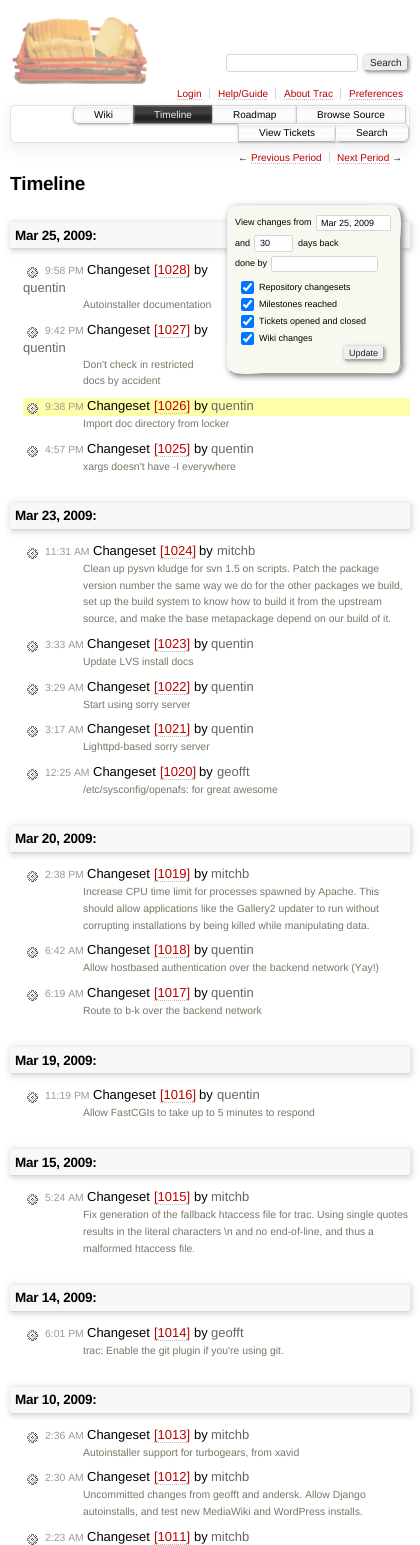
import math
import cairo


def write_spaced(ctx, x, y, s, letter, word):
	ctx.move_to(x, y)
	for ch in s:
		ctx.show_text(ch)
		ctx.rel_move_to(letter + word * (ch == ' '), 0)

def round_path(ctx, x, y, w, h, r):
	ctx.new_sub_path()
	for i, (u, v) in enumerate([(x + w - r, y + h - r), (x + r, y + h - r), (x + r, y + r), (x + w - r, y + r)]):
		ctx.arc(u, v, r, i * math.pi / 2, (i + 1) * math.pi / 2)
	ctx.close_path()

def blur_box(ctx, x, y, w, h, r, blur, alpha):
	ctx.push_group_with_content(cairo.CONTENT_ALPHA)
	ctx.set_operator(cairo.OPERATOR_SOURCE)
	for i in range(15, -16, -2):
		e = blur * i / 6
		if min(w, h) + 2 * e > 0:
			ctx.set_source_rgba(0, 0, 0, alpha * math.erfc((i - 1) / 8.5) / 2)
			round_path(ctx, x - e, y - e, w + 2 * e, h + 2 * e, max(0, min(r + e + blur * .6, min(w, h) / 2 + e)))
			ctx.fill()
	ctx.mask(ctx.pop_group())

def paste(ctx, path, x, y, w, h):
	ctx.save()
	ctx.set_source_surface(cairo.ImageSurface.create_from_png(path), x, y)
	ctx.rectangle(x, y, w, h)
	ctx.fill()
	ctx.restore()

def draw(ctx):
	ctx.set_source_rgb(1, 1, 1)
	ctx.paint()
	paste(ctx, 'media/1.png', 12, 17, 135, 68)
	round_path(ctx, 226.5, 54.5, 131, 17, 2.5)
	ctx.set_source_rgb(0.843, 0.843, 0.843)
	ctx.set_line_width(1)
	ctx.stroke()
	ctx.set_source_rgb(0.533, 0.533, 0.533)
	blur_box(ctx, 365, 56, 44, 16, 3, 2, 1)
	ctx.set_source_rgb(0.933, 0.933, 0.933)
	round_path(ctx, 364, 55, 44, 16, 3)
	ctx.fill()
	ctx.new_path()
	ctx.move_to(407, 56)
	ctx.curve_to(408.5, 58, 407.5, 61, 407.5, 63)
	ctx.curve_to(407.5, 71.5, 408, 70.5, 398.5, 70.5)
	ctx.line_to(386, 70.5)
	ctx.curve_to(383, 70.5, 367, 71.5, 365, 70)
	ctx.set_source_rgb(0.624, 0.624, 0.624)
	ctx.stroke()
	ctx.new_path()
	ctx.move_to(365, 70)
	ctx.curve_to(363.5, 68, 364.5, 65, 364.5, 63)
	ctx.curve_to(364.5, 54.5, 364, 55.5, 373.5, 55.5)
	ctx.line_to(386, 55.5)
	ctx.curve_to(389, 55.5, 405, 54.5, 407, 56)
	ctx.set_source_rgb(0.933, 0.933, 0.933)
	ctx.stroke()
	ctx.select_font_face('Liberation Sans')
	ctx.set_font_size(10)
	ctx.set_source_rgb(0.133, 0.133, 0.133)
	ctx.move_to(370, 66)
	ctx.show_text('Search')
	ctx.save()
	ctx.set_fill_rule(cairo.FILL_RULE_EVEN_ODD)
	ctx.new_path()
	ctx.move_to(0, 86)
	ctx.line_to(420, 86)
	ctx.line_to(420, 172)
	ctx.line_to(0, 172)
	ctx.close_path()
	ctx.move_to(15, 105)
	ctx.line_to(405, 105)
	ctx.curve_to(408, 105, 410, 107, 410, 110)
	ctx.line_to(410, 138)
	ctx.curve_to(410, 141, 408, 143, 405, 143)
	ctx.line_to(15, 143)
	ctx.curve_to(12, 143, 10, 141, 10, 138)
	ctx.line_to(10, 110)
	ctx.curve_to(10, 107, 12, 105, 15, 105)
	ctx.close_path()
	ctx.clip()
	ctx.set_source_rgb(0.933, 0.933, 0.933)
	blur_box(ctx, 10, 110, 400, 38, 5, 7.5, 1)
	ctx.restore()
	ctx.set_source_rgb(0.843, 0.843, 0.843)
	ctx.rectangle(209, 88, 1, 11)
	ctx.fill()
	ctx.new_path()
	ctx.move_to(177, 99.5)
	ctx.line_to(202, 99.5)
	ctx.set_source_rgb(0.733, 0.733, 0.733)
	ctx.set_dash([1, 1])
	ctx.stroke()
	ctx.set_source_rgb(0.733, 0, 0)
	ctx.move_to(177, 97)
	ctx.show_text('Login')
	ctx.set_source_rgb(0.843, 0.843, 0.843)
	ctx.rectangle(275, 88, 1, 11)
	ctx.fill()
	ctx.new_path()
	ctx.move_to(218, 99.5)
	ctx.line_to(268, 99.5)
	ctx.set_source_rgb(0.733, 0.733, 0.733)
	ctx.stroke()
	ctx.set_source_rgb(0.733, 0, 0)
	ctx.move_to(218, 97)
	ctx.show_text('Help/Guide')
	ctx.set_source_rgb(0.843, 0.843, 0.843)
	ctx.rectangle(340, 88, 1, 11)
	ctx.fill()
	ctx.set_source_rgb(0.733, 0, 0)
	ctx.move_to(284, 97)
	ctx.show_text('About Trac')
	ctx.new_path()
	ctx.move_to(284, 99.5)
	ctx.line_to(333, 99.5)
	ctx.set_source_rgb(0.733, 0.733, 0.733)
	ctx.stroke()
	ctx.set_source_rgb(0.733, 0, 0)
	ctx.move_to(349, 97)
	ctx.show_text('Preferences')
	ctx.new_path()
	ctx.move_to(349, 99.5)
	ctx.line_to(403, 99.5)
	ctx.set_source_rgb(0.733, 0.733, 0.733)
	ctx.stroke()
	round_path(ctx, 10.5, 105.5, 399, 37, 4.5)
	ctx.set_source_rgb(0.894, 0.894, 0.894)
	ctx.set_dash([])
	ctx.stroke()
	ctx.set_source_rgb(1, 1, 1)
	ctx.new_path()
	ctx.move_to(78, 105)
	ctx.line_to(134, 105)
	ctx.line_to(134, 124)
	ctx.line_to(78, 124)
	ctx.curve_to(75, 124, 73, 122, 73, 119)
	ctx.line_to(73, 110)
	ctx.curve_to(73, 107, 75, 105, 78, 105)
	ctx.close_path()
	ctx.fill()
	paste(ctx, 'media/2.png', 73, 107, 60, 17)
	ctx.new_path()
	ctx.move_to(78, 105.5)
	ctx.line_to(133.5, 105.5)
	ctx.line_to(133.5, 123.5)
	ctx.line_to(78, 123.5)
	ctx.curve_to(75.5, 123.5, 73.5, 121.5, 73.5, 119)
	ctx.line_to(73.5, 110)
	ctx.curve_to(73.5, 107.5, 75.5, 105.5, 78, 105.5)
	ctx.close_path()
	ctx.set_source_rgb(0.894, 0.894, 0.894)
	ctx.stroke()
	ctx.save()
	ctx.set_fill_rule(cairo.FILL_RULE_EVEN_ODD)
	ctx.new_path()
	ctx.move_to(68, 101)
	ctx.line_to(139, 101)
	ctx.line_to(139, 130)
	ctx.line_to(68, 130)
	ctx.close_path()
	ctx.move_to(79, 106)
	ctx.line_to(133, 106)
	ctx.line_to(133, 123)
	ctx.line_to(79, 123)
	ctx.curve_to(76, 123, 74, 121, 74, 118)
	ctx.line_to(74, 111)
	ctx.curve_to(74, 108, 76, 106, 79, 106)
	ctx.close_path()
	ctx.clip()
	ctx.set_source_rgb(0.6, 0.6, 0.6)
	blur_box(ctx, 74, 107, 59, 17, 5, 1.5, 1)
	ctx.restore()
	ctx.set_source_rgb(0, 0, 0)
	ctx.move_to(94, 118)
	ctx.show_text('Wiki')
	ctx.rectangle(133.5, 105.5, 79, 18)
	ctx.set_source_rgb(0.4, 0.4, 0.4)
	ctx.stroke()
	ctx.set_source_rgb(0.6, 0.6, 0.6)
	blur_box(ctx, 134, 107, 78, 17, 0, 1.5, 1)
	ctx.set_source_rgb(0, 0, 0)
	ctx.rectangle(134, 106, 78, 17)
	ctx.fill()
	paste(ctx, 'media/3.png', 134, 106, 78, 17)
	ctx.set_source_rgb(0.933, 0.933, 0.933)
	ctx.move_to(154, 118)
	ctx.show_text('Timeline')
	ctx.set_source_rgb(1, 1, 1)
	ctx.rectangle(213, 106, 2, 17)
	ctx.fill()
	paste(ctx, 'media/4.png', 213, 107, 83, 16)
	ctx.rectangle(212.5, 105.5, 84, 18)
	ctx.set_source_rgb(0.894, 0.894, 0.894)
	ctx.stroke()
	ctx.save()
	ctx.set_fill_rule(cairo.FILL_RULE_EVEN_ODD)
	ctx.new_path()
	ctx.move_to(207, 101)
	ctx.line_to(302, 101)
	ctx.line_to(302, 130)
	ctx.line_to(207, 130)
	ctx.close_path()
	ctx.move_to(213, 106)
	ctx.line_to(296, 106)
	ctx.line_to(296, 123)
	ctx.line_to(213, 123)
	ctx.close_path()
	ctx.clip()
	ctx.set_source_rgb(0.6, 0.6, 0.6)
	blur_box(ctx, 213, 107, 83, 17, 0, 1.5, 1)
	ctx.restore()
	ctx.set_source_rgb(0, 0, 0)
	ctx.move_to(233, 118)
	ctx.show_text('Roadmap')
	ctx.set_source_rgb(1, 1, 1)
	ctx.rectangle(297, 106, 2, 17)
	ctx.fill()
	paste(ctx, 'media/5.png', 297, 107, 108, 16)
	ctx.rectangle(296.5, 105.5, 109, 18)
	ctx.set_source_rgb(0.894, 0.894, 0.894)
	ctx.stroke()
	ctx.save()
	ctx.set_fill_rule(cairo.FILL_RULE_EVEN_ODD)
	ctx.new_path()
	ctx.move_to(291, 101)
	ctx.line_to(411, 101)
	ctx.line_to(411, 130)
	ctx.line_to(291, 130)
	ctx.close_path()
	ctx.move_to(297, 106)
	ctx.line_to(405, 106)
	ctx.line_to(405, 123)
	ctx.line_to(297, 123)
	ctx.close_path()
	ctx.clip()
	ctx.set_source_rgb(0.6, 0.6, 0.6)
	blur_box(ctx, 297, 107, 108, 17, 0, 1.5, 1)
	ctx.restore()
	ctx.set_source_rgb(0, 0, 0)
	ctx.move_to(317, 118)
	ctx.show_text('Browse Source')
	ctx.set_source_rgb(1, 1, 1)
	ctx.rectangle(239, 124, 96, 3)
	ctx.fill()
	paste(ctx, 'media/6.png', 239, 125, 96, 16)
	ctx.rectangle(238.5, 123.5, 97, 18)
	ctx.set_source_rgb(0.894, 0.894, 0.894)
	ctx.stroke()
	ctx.save()
	ctx.set_fill_rule(cairo.FILL_RULE_EVEN_ODD)
	ctx.new_path()
	ctx.move_to(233, 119)
	ctx.line_to(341, 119)
	ctx.line_to(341, 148)
	ctx.line_to(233, 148)
	ctx.close_path()
	ctx.move_to(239, 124)
	ctx.line_to(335, 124)
	ctx.line_to(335, 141)
	ctx.line_to(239, 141)
	ctx.close_path()
	ctx.clip()
	ctx.set_source_rgb(0.6, 0.6, 0.6)
	blur_box(ctx, 239, 125, 96, 17, 0, 1.5, 1)
	ctx.restore()
	ctx.set_source_rgb(0, 0, 0)
	ctx.move_to(259, 136)
	ctx.show_text('View Tickets')
	ctx.set_source_rgb(1, 1, 1)
	ctx.new_path()
	ctx.move_to(335, 123)
	ctx.line_to(404, 123)
	ctx.curve_to(407, 123, 409, 125, 409, 128)
	ctx.line_to(409, 137)
	ctx.curve_to(409, 140, 407, 142, 404, 142)
	ctx.line_to(335, 142)
	ctx.close_path()
	ctx.fill()
	paste(ctx, 'media/7.png', 336, 125, 73, 17)
	ctx.new_path()
	ctx.move_to(335.5, 123.5)
	ctx.line_to(404, 123.5)
	ctx.curve_to(406.5, 123.5, 408.5, 125.5, 408.5, 128)
	ctx.line_to(408.5, 137)
	ctx.curve_to(408.5, 139.5, 406.5, 141.5, 404, 141.5)
	ctx.line_to(335.5, 141.5)
	ctx.close_path()
	ctx.set_source_rgb(0.894, 0.894, 0.894)
	ctx.stroke()
	ctx.save()
	ctx.set_fill_rule(cairo.FILL_RULE_EVEN_ODD)
	ctx.new_path()
	ctx.move_to(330, 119)
	ctx.line_to(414, 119)
	ctx.line_to(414, 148)
	ctx.line_to(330, 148)
	ctx.close_path()
	ctx.move_to(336, 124)
	ctx.line_to(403, 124)
	ctx.curve_to(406, 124, 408, 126, 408, 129)
	ctx.line_to(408, 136)
	ctx.curve_to(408, 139, 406, 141, 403, 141)
	ctx.line_to(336, 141)
	ctx.close_path()
	ctx.clip()
	ctx.set_source_rgb(0.6, 0.6, 0.6)
	blur_box(ctx, 336, 125, 72, 17, 5, 1.5, 1)
	ctx.restore()
	ctx.set_source_rgb(0, 0, 0)
	ctx.move_to(356, 136)
	ctx.show_text('Search')
	ctx.set_source_rgb(0.843, 0.843, 0.843)
	ctx.rectangle(329, 152, 1, 11)
	ctx.fill()
	ctx.set_source_rgb(0, 0, 0)
	ctx.move_to(238, 161)
	ctx.show_text('←')
	ctx.new_path()
	ctx.move_to(251, 163.5)
	ctx.line_to(321, 163.5)
	ctx.set_source_rgb(0.733, 0.733, 0.733)
	ctx.set_dash([1, 1])
	ctx.stroke()
	ctx.set_source_rgb(0.733, 0, 0)
	ctx.move_to(251, 161)
	ctx.show_text('Previous Period')
	ctx.move_to(337, 161)
	ctx.show_text('Next Period')
	ctx.new_path()
	ctx.move_to(337, 163.5)
	ctx.line_to(390, 163.5)
	ctx.set_source_rgb(0.733, 0.733, 0.733)
	ctx.stroke()
	ctx.set_source_rgb(0, 0, 0)
	ctx.move_to(392, 161)
	ctx.show_text('→')
	ctx.select_font_face('Liberation Sans', cairo.FONT_SLANT_NORMAL, cairo.FONT_WEIGHT_BOLD)
	ctx.set_font_size(19)
	write_spaced(ctx, 10, 190, 'Timeline', -0.25, 0)
	ctx.set_source_rgb(0.8, 0.8, 0.8)
	blur_box(ctx, 11, 223, 400, 27, 1.5, 3.5, 1)
	ctx.set_source_rgb(0.969, 0.969, 0.969)
	round_path(ctx, 10, 222, 400, 27, 1.5)
	ctx.fill()
	ctx.set_source_rgb(0.843, 0.843, 0.843)
	ctx.rectangle(11, 248, 398, 1)
	ctx.fill()
	ctx.set_font_size(13.5)
	ctx.set_source_rgb(0, 0, 0)
	write_spaced(ctx, 15, 240, 'Mar 25, 2009:', -0.25, 0)
	ctx.set_source_rgb(0.467, 0.467, 0.467)
	blur_box(ctx, 229, 207, 174, 169, 9, 3, 1)
	ctx.set_source_rgb(0.969, 0.969, 0.941)
	round_path(ctx, 227, 205, 174, 169, 9)
	ctx.fill()
	ctx.new_path()
	ctx.move_to(398, 208)
	ctx.curve_to(404, 214, 400.5, 238, 400.5, 239)
	ctx.line_to(400.5, 340)
	ctx.curve_to(400.5, 378.5, 405, 373.5, 366, 373.5)
	ctx.line_to(262, 373.5)
	ctx.curve_to(261.5, 373.5, 236, 377, 230, 371)
	ctx.set_source_rgb(0.624, 0.624, 0.624)
	ctx.set_dash([])
	ctx.stroke()
	ctx.new_path()
	ctx.move_to(230, 371)
	ctx.curve_to(224, 365, 227.5, 341, 227.5, 340)
	ctx.line_to(227.5, 239)
	ctx.curve_to(227.5, 200.5, 223, 205.5, 262, 205.5)
	ctx.line_to(366, 205.5)
	ctx.curve_to(366.5, 205.5, 392, 202, 398, 208)
	ctx.set_source_rgb(0.933, 0.933, 0.933)
	ctx.stroke()
	ctx.select_font_face('Liberation Sans')
	ctx.set_font_size(9)
	ctx.set_source_rgb(0, 0, 0)
	ctx.move_to(235, 225)
	ctx.show_text('View changes from')
	ctx.set_source_rgb(1, 1, 1)
	round_path(ctx, 316.5, 215.5, 74, 15, 2)
	ctx.fill_preserve()
	ctx.set_source_rgb(0.843, 0.843, 0.843)
	ctx.stroke()
	ctx.set_source_rgb(0, 0, 0)
	ctx.move_to(321, 226)
	ctx.show_text('Mar 25, 2009')
	ctx.move_to(235, 246)
	ctx.show_text('and')
	ctx.set_source_rgb(1, 1, 1)
	round_path(ctx, 254.5, 235.5, 38, 16, 2)
	ctx.fill_preserve()
	ctx.set_source_rgb(0.843, 0.843, 0.843)
	ctx.stroke()
	ctx.set_source_rgb(0, 0, 0)
	for x, y, s in [
		(260, 246, '30'),
		(298, 246, 'days back'),
		(235, 266, 'done by'),
	]:
		ctx.move_to(x, y)
		ctx.show_text(s)
	ctx.set_source_rgb(1, 1, 1)
	round_path(ctx, 271.5, 256.5, 106, 15, 2)
	ctx.fill_preserve()
	ctx.set_source_rgb(0.843, 0.843, 0.843)
	ctx.stroke()
	ctx.set_source_rgb(0, 0.459, 1)
	round_path(ctx, 241, 281, 13, 13, 2)
	ctx.fill()
	ctx.new_path()
	ctx.move_to(243.5, 287.5)
	ctx.line_to(246, 290)
	ctx.line_to(251.5, 283.5)
	ctx.set_source_rgb(1, 1, 1)
	ctx.set_line_width(2.1)
	ctx.stroke()
	ctx.set_source_rgb(0, 0, 0)
	ctx.move_to(259, 290)
	ctx.show_text('Repository changesets')
	ctx.set_source_rgb(0, 0.459, 1)
	round_path(ctx, 241, 298, 13, 13, 2)
	ctx.fill()
	ctx.new_path()
	ctx.move_to(243.5, 304.5)
	ctx.line_to(246, 307)
	ctx.line_to(251.5, 300.5)
	ctx.set_source_rgb(1, 1, 1)
	ctx.stroke()
	ctx.set_source_rgb(0, 0, 0)
	ctx.move_to(259, 307)
	ctx.show_text('Milestones reached')
	ctx.set_source_rgb(0, 0.459, 1)
	round_path(ctx, 241, 315, 13, 13, 2)
	ctx.fill()
	ctx.new_path()
	ctx.move_to(243.5, 321.5)
	ctx.line_to(246, 324)
	ctx.line_to(251.5, 317.5)
	ctx.set_source_rgb(1, 1, 1)
	ctx.stroke()
	ctx.set_source_rgb(0, 0, 0)
	ctx.move_to(259, 324)
	ctx.show_text('Tickets opened and closed')
	ctx.set_source_rgb(0, 0.459, 1)
	round_path(ctx, 241, 332, 13, 13, 2)
	ctx.fill()
	ctx.new_path()
	ctx.move_to(243.5, 338.5)
	ctx.line_to(246, 341)
	ctx.line_to(251.5, 334.5)
	ctx.set_source_rgb(1, 1, 1)
	ctx.stroke()
	ctx.set_source_rgb(0, 0, 0)
	ctx.move_to(259, 341)
	ctx.show_text('Wiki changes')
	ctx.set_source_rgb(0.533, 0.533, 0.533)
	blur_box(ctx, 345, 347, 40, 14, 2.5, 2, 1)
	ctx.set_source_rgb(0.933, 0.933, 0.933)
	round_path(ctx, 344, 346, 40, 14, 2.5)
	ctx.fill()
	ctx.new_path()
	ctx.move_to(383, 347)
	ctx.curve_to(384, 348.5, 383.5, 351.5, 383.5, 353)
	ctx.curve_to(383.5, 360.5, 383.5, 359.5, 375.5, 359.5)
	ctx.line_to(352.5, 359.5)
	ctx.curve_to(352, 359.5, 346.5, 360.5, 345, 359)
	ctx.set_source_rgb(0.624, 0.624, 0.624)
	ctx.set_line_width(1)
	ctx.stroke()
	ctx.new_path()
	ctx.move_to(345, 359)
	ctx.curve_to(344, 357.5, 344.5, 354.5, 344.5, 353)
	ctx.curve_to(344.5, 345.5, 344.5, 346.5, 352.5, 346.5)
	ctx.line_to(375.5, 346.5)
	ctx.curve_to(376, 346.5, 381.5, 345.5, 383, 347)
	ctx.set_source_rgb(0.933, 0.933, 0.933)
	ctx.stroke()
	ctx.set_source_rgb(0.133, 0.133, 0.133)
	ctx.move_to(349, 356)
	ctx.show_text('Update')
	paste(ctx, 'media/8.png', 27, 267, 11, 11)
	ctx.set_font_size(10.4)
	ctx.set_source_rgb(0.6, 0.6, 0.6)
	ctx.move_to(45, 274)
	ctx.show_text('9:58 PM')
	ctx.set_font_size(13)
	ctx.set_source_rgb(0, 0, 0)
	ctx.move_to(87, 274)
	ctx.show_text('Changeset')
	ctx.set_source_rgb(0.733, 0, 0)
	ctx.move_to(154, 274)
	ctx.show_text('[1028]')
	ctx.new_path()
	ctx.move_to(154, 277.5)
	ctx.line_to(190, 277.5)
	ctx.set_source_rgb(0.733, 0.733, 0.733)
	ctx.set_dash([1, 1])
	ctx.stroke()
	ctx.set_source_rgb(0, 0, 0)
	ctx.move_to(194, 274)
	ctx.show_text('by')
	ctx.set_source_rgb(0.4, 0.4, 0.4)
	ctx.move_to(23, 292)
	ctx.show_text('quentin')
	ctx.set_font_size(10.4)
	ctx.set_source_rgb(0.467, 0.467, 0.4)
	ctx.move_to(83, 308)
	ctx.show_text('Autoinstaller documentation')
	paste(ctx, 'media/8.png', 27, 327, 11, 11)
	ctx.set_source_rgb(0.6, 0.6, 0.6)
	ctx.move_to(45, 334)
	ctx.show_text('9:42 PM')
	ctx.set_font_size(13)
	ctx.set_source_rgb(0, 0, 0)
	ctx.move_to(87, 334)
	ctx.show_text('Changeset')
	ctx.set_source_rgb(0.733, 0, 0)
	ctx.move_to(154, 334)
	ctx.show_text('[1027]')
	ctx.new_path()
	ctx.move_to(154, 337.5)
	ctx.line_to(190, 337.5)
	ctx.set_source_rgb(0.733, 0.733, 0.733)
	ctx.stroke()
	ctx.set_source_rgb(0, 0, 0)
	ctx.move_to(194, 334)
	ctx.show_text('by')
	ctx.set_source_rgb(0.4, 0.4, 0.4)
	ctx.move_to(23, 352)
	ctx.show_text('quentin')
	ctx.set_font_size(10.4)
	ctx.set_source_rgb(0.467, 0.467, 0.4)
	ctx.move_to(83, 368)
	ctx.show_text('Don\'t check in restricted')
	ctx.move_to(83, 384)
	ctx.show_text('docs by accident')
	ctx.set_source_rgb(1, 1, 0.667)
	ctx.rectangle(23, 398, 387, 18)
	ctx.fill()
	paste(ctx, 'media/9.png', 27, 403, 11, 11)
	ctx.set_source_rgb(0.6, 0.6, 0.6)
	ctx.move_to(45, 410)
	ctx.show_text('9:38 PM')
	ctx.set_font_size(13)
	ctx.set_source_rgb(0, 0, 0)
	ctx.move_to(87, 410)
	ctx.show_text('Changeset')
	ctx.set_source_rgb(0.733, 0, 0)
	ctx.move_to(154, 410)
	ctx.show_text('[1026]')
	ctx.new_path()
	ctx.move_to(154, 413.5)
	ctx.line_to(190, 413.5)
	ctx.set_source_rgb(0.733, 0.733, 0.733)
	ctx.stroke()
	ctx.set_source_rgb(0, 0, 0)
	ctx.move_to(194, 410)
	ctx.show_text('by')
	ctx.set_source_rgb(0.4, 0.4, 0.4)
	ctx.move_to(211, 410)
	ctx.show_text('quentin')
	ctx.set_font_size(10.4)
	ctx.set_source_rgb(0.467, 0.467, 0.4)
	ctx.move_to(83, 427)
	ctx.show_text('Import doc directory from locker')
	paste(ctx, 'media/8.png', 27, 446, 11, 11)
	ctx.set_source_rgb(0.6, 0.6, 0.6)
	ctx.move_to(45, 453)
	ctx.show_text('4:57 PM')
	ctx.set_font_size(13)
	ctx.set_source_rgb(0, 0, 0)
	ctx.move_to(87, 453)
	ctx.show_text('Changeset')
	ctx.set_source_rgb(0.733, 0, 0)
	ctx.move_to(154, 453)
	ctx.show_text('[1025]')
	ctx.new_path()
	ctx.move_to(154, 456.5)
	ctx.line_to(190, 456.5)
	ctx.set_source_rgb(0.733, 0.733, 0.733)
	ctx.stroke()
	ctx.set_source_rgb(0, 0, 0)
	ctx.move_to(194, 453)
	ctx.show_text('by')
	ctx.set_source_rgb(0.4, 0.4, 0.4)
	ctx.move_to(211, 453)
	ctx.show_text('quentin')
	ctx.set_font_size(10.4)
	ctx.set_source_rgb(0.467, 0.467, 0.4)
	ctx.move_to(83, 470)
	ctx.show_text('xargs doesn\'t have -I everywhere')
	ctx.set_source_rgb(0.8, 0.8, 0.8)
	blur_box(ctx, 11, 504, 400, 27, 1.5, 3.5, 1)
	ctx.set_source_rgb(0.969, 0.969, 0.969)
	round_path(ctx, 10, 503, 400, 27, 1.5)
	ctx.fill()
	ctx.set_source_rgb(0.843, 0.843, 0.843)
	ctx.rectangle(11, 529, 398, 1)
	ctx.fill()
	ctx.select_font_face('Liberation Sans', cairo.FONT_SLANT_NORMAL, cairo.FONT_WEIGHT_BOLD)
	ctx.set_font_size(13.5)
	ctx.set_source_rgb(0, 0, 0)
	write_spaced(ctx, 15, 520, 'Mar 23, 2009:', -0.25, 0)
	paste(ctx, 'media/8.png', 27, 548, 11, 11)
	ctx.select_font_face('Liberation Sans')
	ctx.set_font_size(10.4)
	ctx.set_source_rgb(0.6, 0.6, 0.6)
	ctx.move_to(45, 555)
	ctx.show_text('11:31 AM')
	ctx.set_font_size(13)
	ctx.set_source_rgb(0, 0, 0)
	ctx.move_to(93, 555)
	ctx.show_text('Changeset')
	ctx.set_source_rgb(0.733, 0, 0)
	ctx.move_to(160, 555)
	ctx.show_text('[1024]')
	ctx.new_path()
	ctx.move_to(160, 558.5)
	ctx.line_to(196, 558.5)
	ctx.set_source_rgb(0.733, 0.733, 0.733)
	ctx.stroke()
	ctx.set_source_rgb(0, 0, 0)
	ctx.move_to(199, 555)
	ctx.show_text('by')
	ctx.set_source_rgb(0.4, 0.4, 0.4)
	ctx.move_to(217, 555)
	ctx.show_text('mitchb')
	ctx.set_font_size(10.4)
	ctx.set_source_rgb(0.467, 0.467, 0.4)
	for x, y, s in [
		(83, 572, 'Clean up pysvn kludge for svn 1.5 on scripts. Patch the package'),
		(83, 589, 'version number the same way we do for the other packages we build,'),
		(83, 605, 'set up the build system to know how to build it from the upstream'),
		(83, 622, 'source, and make the base metapackage depend on our build of it.'),
	]:
		ctx.move_to(x, y)
		ctx.show_text(s)
	paste(ctx, 'media/8.png', 27, 641, 11, 11)
	ctx.set_source_rgb(0.6, 0.6, 0.6)
	ctx.move_to(45, 648)
	ctx.show_text('3:33 AM')
	ctx.set_font_size(13)
	ctx.set_source_rgb(0, 0, 0)
	ctx.move_to(87, 648)
	ctx.show_text('Changeset')
	ctx.set_source_rgb(0.733, 0, 0)
	ctx.move_to(154, 648)
	ctx.show_text('[1023]')
	ctx.new_path()
	ctx.move_to(154, 651.5)
	ctx.line_to(190, 651.5)
	ctx.set_source_rgb(0.733, 0.733, 0.733)
	ctx.stroke()
	ctx.set_source_rgb(0, 0, 0)
	ctx.move_to(194, 648)
	ctx.show_text('by')
	ctx.set_source_rgb(0.4, 0.4, 0.4)
	ctx.move_to(211, 648)
	ctx.show_text('quentin')
	ctx.set_font_size(10.4)
	ctx.set_source_rgb(0.467, 0.467, 0.4)
	ctx.move_to(83, 665)
	ctx.show_text('Update LVS install docs')
	paste(ctx, 'media/8.png', 27, 684, 11, 11)
	ctx.set_source_rgb(0.6, 0.6, 0.6)
	ctx.move_to(45, 691)
	ctx.show_text('3:29 AM')
	ctx.set_font_size(13)
	ctx.set_source_rgb(0, 0, 0)
	ctx.move_to(87, 691)
	ctx.show_text('Changeset')
	ctx.set_source_rgb(0.733, 0, 0)
	ctx.move_to(154, 691)
	ctx.show_text('[1022]')
	ctx.new_path()
	ctx.move_to(154, 694.5)
	ctx.line_to(190, 694.5)
	ctx.set_source_rgb(0.733, 0.733, 0.733)
	ctx.stroke()
	ctx.set_source_rgb(0, 0, 0)
	ctx.move_to(194, 691)
	ctx.show_text('by')
	ctx.set_source_rgb(0.4, 0.4, 0.4)
	ctx.move_to(211, 691)
	ctx.show_text('quentin')
	ctx.set_font_size(10.4)
	ctx.set_source_rgb(0.467, 0.467, 0.4)
	ctx.move_to(83, 708)
	ctx.show_text('Start using sorry server')
	paste(ctx, 'media/8.png', 27, 726, 11, 11)
	ctx.set_source_rgb(0.6, 0.6, 0.6)
	ctx.move_to(45, 733)
	ctx.show_text('3:17 AM')
	ctx.set_font_size(13)
	ctx.set_source_rgb(0, 0, 0)
	ctx.move_to(87, 733)
	ctx.show_text('Changeset')
	ctx.set_source_rgb(0.733, 0, 0)
	ctx.move_to(154, 733)
	ctx.show_text('[1021]')
	ctx.new_path()
	ctx.move_to(154, 736.5)
	ctx.line_to(190, 736.5)
	ctx.set_source_rgb(0.733, 0.733, 0.733)
	ctx.stroke()
	ctx.set_source_rgb(0, 0, 0)
	ctx.move_to(194, 733)
	ctx.show_text('by')
	ctx.set_source_rgb(0.4, 0.4, 0.4)
	ctx.move_to(211, 733)
	ctx.show_text('quentin')
	ctx.set_font_size(10.4)
	ctx.set_source_rgb(0.467, 0.467, 0.4)
	ctx.move_to(83, 750)
	ctx.show_text('Lighttpd-based sorry server')
	paste(ctx, 'media/8.png', 27, 769, 11, 11)
	ctx.set_source_rgb(0.6, 0.6, 0.6)
	ctx.move_to(45, 776)
	ctx.show_text('12:25 AM')
	ctx.set_font_size(13)
	ctx.set_source_rgb(0, 0, 0)
	ctx.move_to(93, 776)
	ctx.show_text('Changeset')
	ctx.set_source_rgb(0.733, 0, 0)
	ctx.move_to(160, 776)
	ctx.show_text('[1020]')
	ctx.new_path()
	ctx.move_to(160, 779.5)
	ctx.line_to(196, 779.5)
	ctx.set_source_rgb(0.733, 0.733, 0.733)
	ctx.stroke()
	ctx.set_source_rgb(0, 0, 0)
	ctx.move_to(199, 776)
	ctx.show_text('by')
	ctx.set_source_rgb(0.4, 0.4, 0.4)
	ctx.move_to(217, 776)
	ctx.show_text('geofft')
	ctx.set_font_size(10.4)
	ctx.set_source_rgb(0.467, 0.467, 0.4)
	ctx.move_to(83, 793)
	ctx.show_text('/etc/sysconfig/openafs: for great awesome')
	ctx.set_source_rgb(0.8, 0.8, 0.8)
	blur_box(ctx, 11, 827, 400, 27, 1.5, 3.5, 1)
	ctx.set_source_rgb(0.969, 0.969, 0.969)
	round_path(ctx, 10, 826, 400, 27, 1.5)
	ctx.fill()
	ctx.set_source_rgb(0.843, 0.843, 0.843)
	ctx.rectangle(11, 852, 398, 1)
	ctx.fill()
	ctx.select_font_face('Liberation Sans', cairo.FONT_SLANT_NORMAL, cairo.FONT_WEIGHT_BOLD)
	ctx.set_font_size(13.5)
	ctx.set_source_rgb(0, 0, 0)
	write_spaced(ctx, 15, 843, 'Mar 20, 2009:', -0.25, 0)
	paste(ctx, 'media/8.png', 27, 871, 11, 11)
	ctx.select_font_face('Liberation Sans')
	ctx.set_font_size(10.4)
	ctx.set_source_rgb(0.6, 0.6, 0.6)
	ctx.move_to(45, 878)
	ctx.show_text('2:38 PM')
	ctx.set_font_size(13)
	ctx.set_source_rgb(0, 0, 0)
	ctx.move_to(87, 878)
	ctx.show_text('Changeset')
	ctx.set_source_rgb(0.733, 0, 0)
	ctx.move_to(154, 878)
	ctx.show_text('[1019]')
	ctx.new_path()
	ctx.move_to(154, 881.5)
	ctx.line_to(190, 881.5)
	ctx.set_source_rgb(0.733, 0.733, 0.733)
	ctx.stroke()
	ctx.set_source_rgb(0, 0, 0)
	ctx.move_to(194, 878)
	ctx.show_text('by')
	ctx.set_source_rgb(0.4, 0.4, 0.4)
	ctx.move_to(211, 878)
	ctx.show_text('mitchb')
	ctx.set_font_size(10.4)
	ctx.set_source_rgb(0.467, 0.467, 0.4)
	for x, y, s in [
		(83, 895, 'Increase CPU time limit for processes spawned by Apache. This'),
		(83, 912, 'should allow applications like the Gallery2 updater to run without'),
		(83, 929, 'corrupting installations by being killed while manipulating data.'),
	]:
		ctx.move_to(x, y)
		ctx.show_text(s)
	paste(ctx, 'media/8.png', 27, 947, 11, 11)
	ctx.set_source_rgb(0.6, 0.6, 0.6)
	ctx.move_to(45, 954)
	ctx.show_text('6:42 AM')
	ctx.set_font_size(13)
	ctx.set_source_rgb(0, 0, 0)
	ctx.move_to(87, 954)
	ctx.show_text('Changeset')
	ctx.set_source_rgb(0.733, 0, 0)
	ctx.move_to(154, 954)
	ctx.show_text('[1018]')
	ctx.new_path()
	ctx.move_to(154, 957.5)
	ctx.line_to(190, 957.5)
	ctx.set_source_rgb(0.733, 0.733, 0.733)
	ctx.stroke()
	ctx.set_source_rgb(0, 0, 0)
	ctx.move_to(194, 954)
	ctx.show_text('by')
	ctx.set_source_rgb(0.4, 0.4, 0.4)
	ctx.move_to(211, 954)
	ctx.show_text('quentin')
	ctx.set_font_size(10.4)
	ctx.set_source_rgb(0.467, 0.467, 0.4)
	ctx.move_to(83, 971)
	ctx.show_text('Allow hostbased authentication over the backend network (Yay!)')
	paste(ctx, 'media/8.png', 27, 990, 11, 11)
	ctx.set_source_rgb(0.6, 0.6, 0.6)
	ctx.move_to(45, 997)
	ctx.show_text('6:19 AM')
	ctx.set_font_size(13)
	ctx.set_source_rgb(0, 0, 0)
	ctx.move_to(87, 997)
	ctx.show_text('Changeset')
	ctx.set_source_rgb(0.733, 0, 0)
	ctx.move_to(154, 997)
	ctx.show_text('[1017]')
	ctx.new_path()
	ctx.move_to(154, 1000.5)
	ctx.line_to(190, 1000.5)
	ctx.set_source_rgb(0.733, 0.733, 0.733)
	ctx.stroke()
	ctx.set_source_rgb(0, 0, 0)
	ctx.move_to(194, 997)
	ctx.show_text('by')
	ctx.set_source_rgb(0.4, 0.4, 0.4)
	ctx.move_to(211, 997)
	ctx.show_text('quentin')
	ctx.set_font_size(10.4)
	ctx.set_source_rgb(0.467, 0.467, 0.4)
	ctx.move_to(83, 1014)
	ctx.show_text('Route to b-k over the backend network')
	ctx.set_source_rgb(0.8, 0.8, 0.8)
	blur_box(ctx, 11, 1048, 400, 27, 1.5, 3.5, 1)
	ctx.set_source_rgb(0.969, 0.969, 0.969)
	round_path(ctx, 10, 1047, 400, 27, 1.5)
	ctx.fill()
	ctx.set_source_rgb(0.843, 0.843, 0.843)
	ctx.rectangle(11, 1073, 398, 1)
	ctx.fill()
	ctx.select_font_face('Liberation Sans', cairo.FONT_SLANT_NORMAL, cairo.FONT_WEIGHT_BOLD)
	ctx.set_font_size(13.5)
	ctx.set_source_rgb(0, 0, 0)
	write_spaced(ctx, 15, 1065, 'Mar 19, 2009:', -0.25, 0)
	paste(ctx, 'media/8.png', 27, 1092, 11, 11)
	ctx.select_font_face('Liberation Sans')
	ctx.set_font_size(10.4)
	ctx.set_source_rgb(0.6, 0.6, 0.6)
	ctx.move_to(45, 1099)
	ctx.show_text('11:19 PM')
	ctx.set_font_size(13)
	ctx.set_source_rgb(0, 0, 0)
	ctx.move_to(93, 1099)
	ctx.show_text('Changeset')
	ctx.set_source_rgb(0.733, 0, 0)
	ctx.move_to(160, 1099)
	ctx.show_text('[1016]')
	ctx.new_path()
	ctx.move_to(160, 1102.5)
	ctx.line_to(196, 1102.5)
	ctx.set_source_rgb(0.733, 0.733, 0.733)
	ctx.stroke()
	ctx.set_source_rgb(0, 0, 0)
	ctx.move_to(199, 1099)
	ctx.show_text('by')
	ctx.set_source_rgb(0.4, 0.4, 0.4)
	ctx.move_to(217, 1099)
	ctx.show_text('quentin')
	ctx.set_font_size(10.4)
	ctx.set_source_rgb(0.467, 0.467, 0.4)
	ctx.move_to(83, 1116)
	ctx.show_text('Allow FastCGIs to take up to 5 minutes to respond')
	ctx.set_source_rgb(0.8, 0.8, 0.8)
	blur_box(ctx, 11, 1150, 400, 27, 1.5, 3.5, 1)
	ctx.set_source_rgb(0.969, 0.969, 0.969)
	round_path(ctx, 10, 1149, 400, 27, 1.5)
	ctx.fill()
	ctx.set_source_rgb(0.843, 0.843, 0.843)
	ctx.rectangle(11, 1175, 398, 1)
	ctx.fill()
	ctx.select_font_face('Liberation Sans', cairo.FONT_SLANT_NORMAL, cairo.FONT_WEIGHT_BOLD)
	ctx.set_font_size(13.5)
	ctx.set_source_rgb(0, 0, 0)
	write_spaced(ctx, 15, 1167, 'Mar 15, 2009:', -0.25, 0)
	paste(ctx, 'media/8.png', 27, 1194, 11, 11)
	ctx.select_font_face('Liberation Sans')
	ctx.set_font_size(10.4)
	ctx.set_source_rgb(0.6, 0.6, 0.6)
	ctx.move_to(45, 1201)
	ctx.show_text('5:24 AM')
	ctx.set_font_size(13)
	ctx.set_source_rgb(0, 0, 0)
	ctx.move_to(87, 1201)
	ctx.show_text('Changeset')
	ctx.set_source_rgb(0.733, 0, 0)
	ctx.move_to(154, 1201)
	ctx.show_text('[1015]')
	ctx.new_path()
	ctx.move_to(154, 1204.5)
	ctx.line_to(190, 1204.5)
	ctx.set_source_rgb(0.733, 0.733, 0.733)
	ctx.stroke()
	ctx.set_source_rgb(0, 0, 0)
	ctx.move_to(194, 1201)
	ctx.show_text('by')
	ctx.set_source_rgb(0.4, 0.4, 0.4)
	ctx.move_to(211, 1201)
	ctx.show_text('mitchb')
	ctx.set_font_size(10.4)
	ctx.set_source_rgb(0.467, 0.467, 0.4)
	for x, y, s in [
		(83, 1218, 'Fix generation of the fallback htaccess file for trac. Using single quotes'),
		(83, 1235, 'results in the literal characters \\n and no end-of-line, and thus a'),
		(83, 1252, 'malformed htaccess file.'),
	]:
		ctx.move_to(x, y)
		ctx.show_text(s)
	ctx.set_source_rgb(0.8, 0.8, 0.8)
	blur_box(ctx, 11, 1286, 400, 27, 1.5, 3.5, 1)
	ctx.set_source_rgb(0.969, 0.969, 0.969)
	round_path(ctx, 10, 1285, 400, 27, 1.5)
	ctx.fill()
	ctx.set_source_rgb(0.843, 0.843, 0.843)
	ctx.rectangle(11, 1311, 398, 1)
	ctx.fill()
	ctx.select_font_face('Liberation Sans', cairo.FONT_SLANT_NORMAL, cairo.FONT_WEIGHT_BOLD)
	ctx.set_font_size(13.5)
	ctx.set_source_rgb(0, 0, 0)
	write_spaced(ctx, 15, 1302, 'Mar 14, 2009:', -0.25, 0)
	paste(ctx, 'media/8.png', 27, 1330, 11, 11)
	ctx.select_font_face('Liberation Sans')
	ctx.set_font_size(10.4)
	ctx.set_source_rgb(0.6, 0.6, 0.6)
	ctx.move_to(45, 1337)
	ctx.show_text('6:01 PM')
	ctx.set_font_size(13)
	ctx.set_source_rgb(0, 0, 0)
	ctx.move_to(87, 1337)
	ctx.show_text('Changeset')
	ctx.set_source_rgb(0.733, 0, 0)
	ctx.move_to(154, 1337)
	ctx.show_text('[1014]')
	ctx.new_path()
	ctx.move_to(154, 1340.5)
	ctx.line_to(190, 1340.5)
	ctx.set_source_rgb(0.733, 0.733, 0.733)
	ctx.stroke()
	ctx.set_source_rgb(0, 0, 0)
	ctx.move_to(194, 1337)
	ctx.show_text('by')
	ctx.set_source_rgb(0.4, 0.4, 0.4)
	ctx.move_to(211, 1337)
	ctx.show_text('geofft')
	ctx.set_font_size(10.4)
	ctx.set_source_rgb(0.467, 0.467, 0.4)
	ctx.move_to(83, 1354)
	ctx.show_text('trac: Enable the git plugin if you\'re using git.')
	ctx.set_source_rgb(0.8, 0.8, 0.8)
	blur_box(ctx, 11, 1388, 400, 27, 1.5, 3.5, 1)
	ctx.set_source_rgb(0.969, 0.969, 0.969)
	round_path(ctx, 10, 1387, 400, 27, 1.5)
	ctx.fill()
	ctx.set_source_rgb(0.843, 0.843, 0.843)
	ctx.rectangle(11, 1413, 398, 1)
	ctx.fill()
	ctx.select_font_face('Liberation Sans', cairo.FONT_SLANT_NORMAL, cairo.FONT_WEIGHT_BOLD)
	ctx.set_font_size(13.5)
	ctx.set_source_rgb(0, 0, 0)
	write_spaced(ctx, 15, 1404, 'Mar 10, 2009:', -0.25, 0)
	paste(ctx, 'media/8.png', 27, 1432, 11, 11)
	ctx.select_font_face('Liberation Sans')
	ctx.set_font_size(10.4)
	ctx.set_source_rgb(0.6, 0.6, 0.6)
	ctx.move_to(45, 1439)
	ctx.show_text('2:36 AM')
	ctx.set_font_size(13)
	ctx.set_source_rgb(0, 0, 0)
	ctx.move_to(87, 1439)
	ctx.show_text('Changeset')
	ctx.set_source_rgb(0.733, 0, 0)
	ctx.move_to(154, 1439)
	ctx.show_text('[1013]')
	ctx.new_path()
	ctx.move_to(154, 1442.5)
	ctx.line_to(190, 1442.5)
	ctx.set_source_rgb(0.733, 0.733, 0.733)
	ctx.stroke()
	ctx.set_source_rgb(0, 0, 0)
	ctx.move_to(194, 1439)
	ctx.show_text('by')
	ctx.set_source_rgb(0.4, 0.4, 0.4)
	ctx.move_to(211, 1439)
	ctx.show_text('mitchb')
	ctx.set_font_size(10.4)
	ctx.set_source_rgb(0.467, 0.467, 0.4)
	ctx.move_to(83, 1456)
	ctx.show_text('Autoinstaller support for turbogears, from xavid')
	paste(ctx, 'media/8.png', 27, 1474, 11, 11)
	ctx.set_source_rgb(0.6, 0.6, 0.6)
	ctx.move_to(45, 1481)
	ctx.show_text('2:30 AM')
	ctx.set_font_size(13)
	ctx.set_source_rgb(0, 0, 0)
	ctx.move_to(87, 1481)
	ctx.show_text('Changeset')
	ctx.set_source_rgb(0.733, 0, 0)
	ctx.move_to(154, 1481)
	ctx.show_text('[1012]')
	ctx.new_path()
	ctx.move_to(154, 1484.5)
	ctx.line_to(190, 1484.5)
	ctx.set_source_rgb(0.733, 0.733, 0.733)
	ctx.stroke()
	ctx.set_source_rgb(0, 0, 0)
	ctx.move_to(194, 1481)
	ctx.show_text('by')
	ctx.set_source_rgb(0.4, 0.4, 0.4)
	ctx.move_to(211, 1481)
	ctx.show_text('mitchb')
	ctx.set_font_size(10.4)
	ctx.set_source_rgb(0.467, 0.467, 0.4)
	ctx.move_to(83, 1498)
	ctx.show_text('Uncommitted changes from geofft and andersk. Allow Django')
	ctx.move_to(83, 1515)
	ctx.show_text('autoinstalls, and test new MediaWiki and WordPress installs.')
	paste(ctx, 'media/8.png', 27, 1534, 11, 11)
	ctx.set_source_rgb(0.6, 0.6, 0.6)
	ctx.move_to(45, 1541)
	ctx.show_text('2:23 AM')
	ctx.set_font_size(13)
	ctx.set_source_rgb(0, 0, 0)
	ctx.move_to(87, 1541)
	ctx.show_text('Changeset')
	ctx.set_source_rgb(0.733, 0, 0)
	ctx.move_to(154, 1541)
	ctx.show_text('[1011]')
	ctx.new_path()
	ctx.move_to(154, 1544.5)
	ctx.line_to(190, 1544.5)
	ctx.set_source_rgb(0.733, 0.733, 0.733)
	ctx.stroke()
	ctx.set_source_rgb(0, 0, 0)
	ctx.move_to(194, 1541)
	ctx.show_text('by')
	ctx.set_source_rgb(0.4, 0.4, 0.4)
	ctx.move_to(211, 1541)
	ctx.show_text('mitchb')


surface = cairo.ImageSurface(cairo.FORMAT_RGB24, 420, 1545)
ctx = cairo.Context(surface)
options = cairo.FontOptions()
options.set_hint_metrics(cairo.HINT_METRICS_OFF)
options.set_hint_style(cairo.HINT_STYLE_NONE)
ctx.set_font_options(options)
ctx.set_miter_limit(4)
draw(ctx)
surface.write_to_png('image.png')
